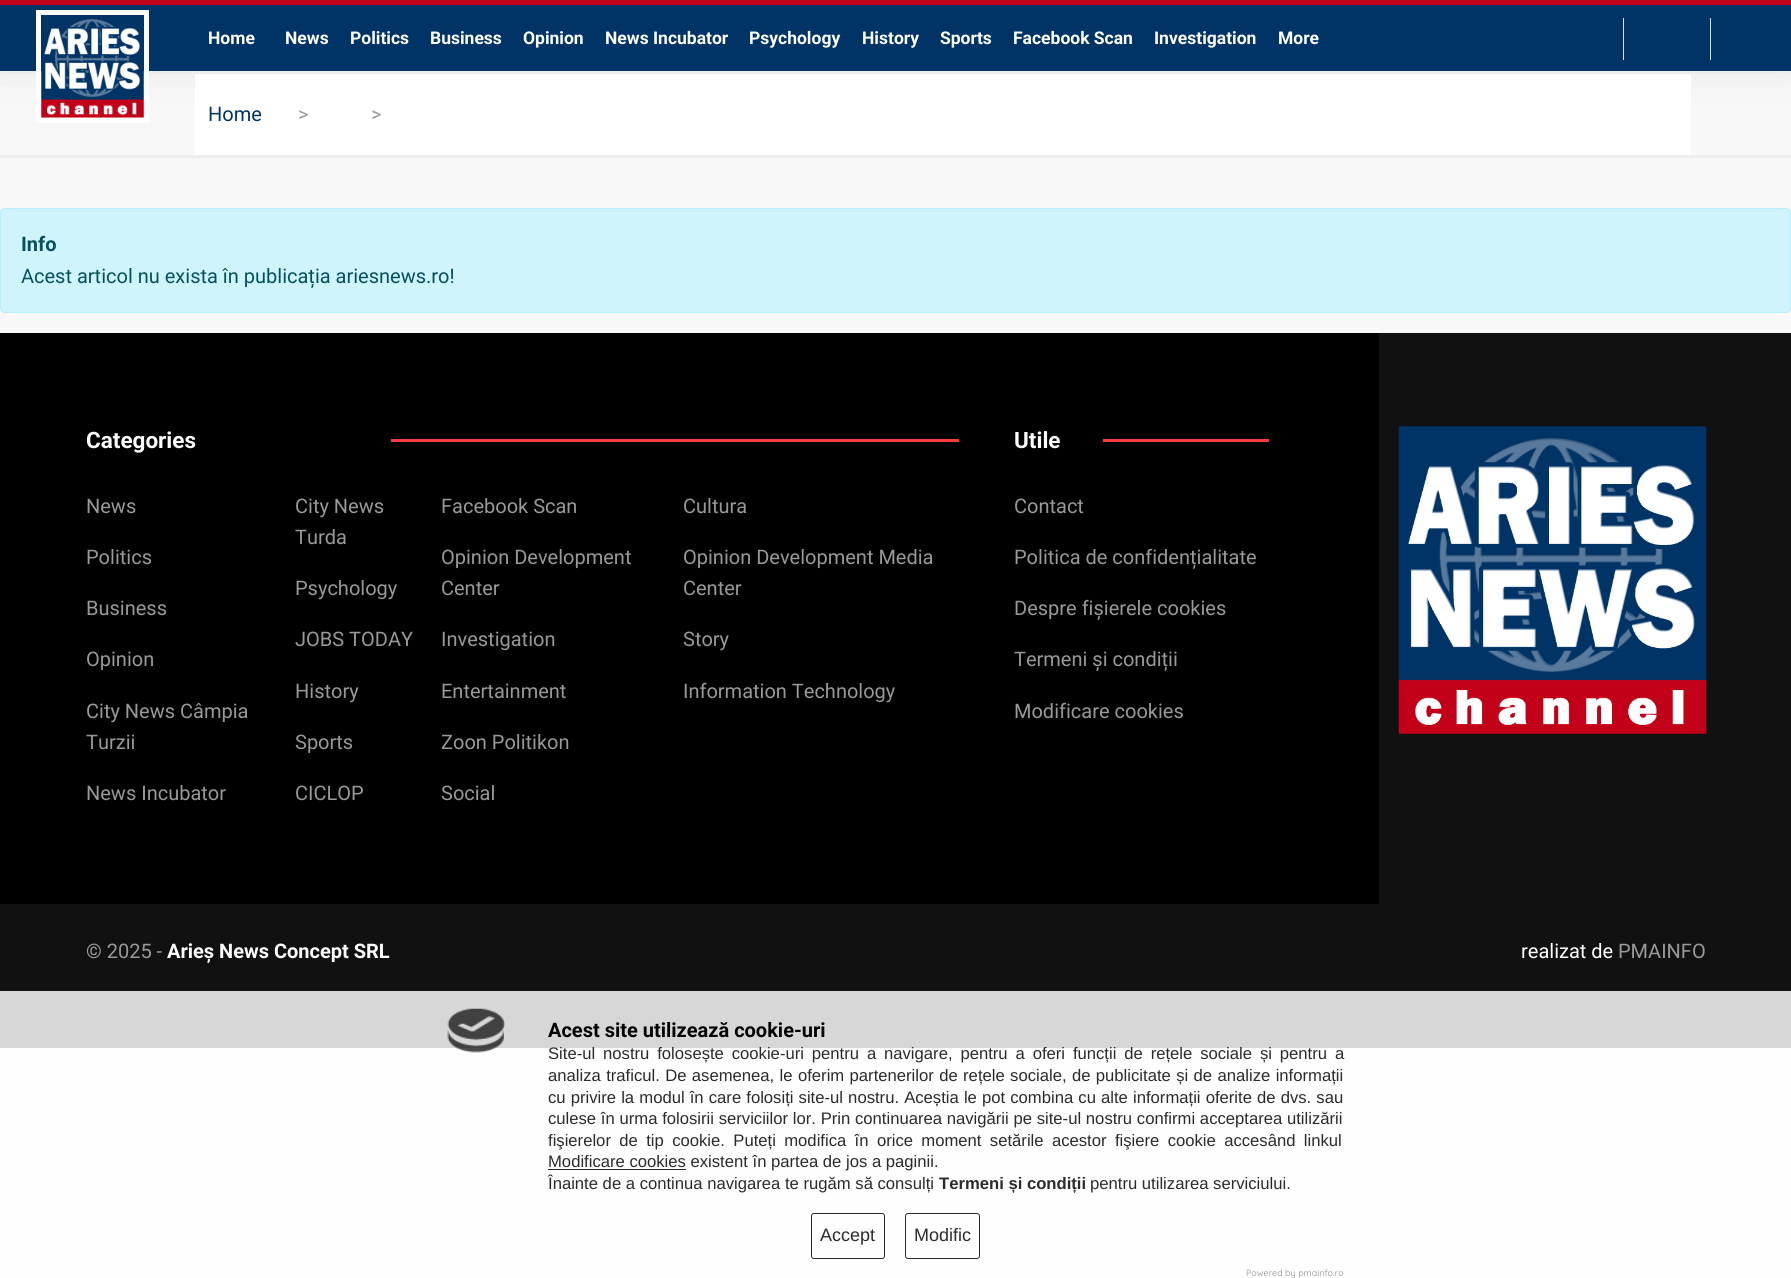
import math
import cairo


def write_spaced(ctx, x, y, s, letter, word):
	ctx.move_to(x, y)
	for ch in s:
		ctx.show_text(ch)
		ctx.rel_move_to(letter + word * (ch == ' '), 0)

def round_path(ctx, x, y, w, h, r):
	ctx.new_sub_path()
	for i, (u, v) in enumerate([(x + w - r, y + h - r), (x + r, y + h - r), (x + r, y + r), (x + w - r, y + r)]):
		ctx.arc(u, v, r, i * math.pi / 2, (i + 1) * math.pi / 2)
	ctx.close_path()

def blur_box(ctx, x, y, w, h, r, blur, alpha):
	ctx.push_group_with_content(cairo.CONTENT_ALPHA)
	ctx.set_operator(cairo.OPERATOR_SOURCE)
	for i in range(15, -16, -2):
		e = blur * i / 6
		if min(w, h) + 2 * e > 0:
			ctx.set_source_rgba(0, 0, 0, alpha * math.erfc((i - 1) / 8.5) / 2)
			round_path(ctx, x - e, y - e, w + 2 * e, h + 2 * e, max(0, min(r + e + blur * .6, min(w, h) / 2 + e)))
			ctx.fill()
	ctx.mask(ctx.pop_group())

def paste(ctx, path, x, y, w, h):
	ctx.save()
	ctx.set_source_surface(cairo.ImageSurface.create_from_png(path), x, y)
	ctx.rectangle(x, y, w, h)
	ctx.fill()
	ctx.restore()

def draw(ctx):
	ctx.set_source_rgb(0.969, 0.969, 0.969)
	ctx.paint()
	ctx.set_source_rgb(0.996, 0.996, 0.996)
	ctx.rectangle(0, 1048, 1791, 230)
	ctx.fill()
	ctx.set_source_rgb(0.18, 0.247, 0.388)
	blur_box(ctx, 0, -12, 1791, 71, 0, 24, 0.15)
	ctx.set_source_rgb(0, 0.2, 0.4)
	ctx.rectangle(0, 5, 1791, 66)
	ctx.fill()
	ctx.set_source_rgb(0.761, 0, 0.09)
	ctx.rectangle(0, 0, 1791, 5)
	ctx.fill()
	ctx.set_source_rgb(0.929, 0.929, 0.929)
	ctx.rectangle(0, 71, 1791, 3)
	ctx.fill()
	ctx.rectangle(38.5, 12.5, 108, 108)
	ctx.set_source_rgb(1, 1, 1)
	ctx.set_line_width(5)
	ctx.stroke()
	paste(ctx, 'media/1.png', 41, 19, 103, 99)
	ctx.select_font_face('Roboto', cairo.FONT_SLANT_NORMAL, cairo.FONT_WEIGHT_BOLD)
	ctx.set_font_size(17.5)
	for x, y, s in [
		(208, 44, 'Home'),
		(285, 44, 'News'),
		(350, 44, 'Politics'),
		(430, 44, 'Business'),
		(523, 44, 'Opinion'),
		(605, 44, 'News Incubator'),
		(749, 44, 'Psychology'),
		(862, 44, 'History'),
		(940, 44, 'Sports'),
		(1013, 44, 'Facebook Scan'),
		(1154, 44, 'Investigation'),
		(1278, 44, 'More'),
	]:
		ctx.move_to(x, y)
		ctx.show_text(s)
	ctx.set_source_rgb(0.878, 0.878, 0.878)
	ctx.rectangle(1623, 18, 1, 42)
	ctx.rectangle(1710, 18, 1, 42)
	ctx.fill()
	ctx.set_source_rgb(0.929, 0.929, 0.929)
	ctx.rectangle(0, 155, 1791, 3)
	ctx.fill()
	ctx.set_source_rgb(1, 1, 1)
	ctx.rectangle(195, 74, 1496, 81)
	ctx.fill()
	ctx.select_font_face('Roboto')
	ctx.set_font_size(20)
	ctx.set_source_rgb(0, 0.2, 0.4)
	ctx.move_to(208, 121)
	ctx.show_text('Home')
	ctx.set_source_rgb(0.6, 0.6, 0.6)
	ctx.move_to(298, 121)
	ctx.show_text('>')
	ctx.move_to(371, 121)
	ctx.show_text('>')
	ctx.set_source_rgb(0.812, 0.957, 0.988)
	round_path(ctx, 0.5, 208.5, 1790, 104, 4.5)
	ctx.fill_preserve()
	ctx.set_source_rgb(0.714, 0.937, 0.984)
	ctx.set_line_width(1)
	ctx.stroke()
	ctx.select_font_face('Roboto', cairo.FONT_SLANT_NORMAL, cairo.FONT_WEIGHT_BOLD)
	ctx.set_source_rgb(0.02, 0.318, 0.376)
	ctx.move_to(21, 251)
	ctx.show_text('Info')
	ctx.select_font_face('Roboto')
	ctx.move_to(21, 283)
	ctx.show_text('Acest articol nu exista în publicația ariesnews.ro!')
	ctx.set_source_rgb(0, 0, 0)
	ctx.rectangle(0, 333, 1379, 571)
	ctx.fill()
	ctx.select_font_face('Roboto', cairo.FONT_SLANT_NORMAL, cairo.FONT_WEIGHT_BOLD)
	ctx.set_font_size(22.5)
	ctx.set_source_rgb(1, 1, 1)
	ctx.move_to(86, 448)
	ctx.show_text('Categories')
	ctx.set_source_rgb(0.965, 0.227, 0.227)
	ctx.rectangle(391, 439, 568, 3)
	ctx.fill()
	ctx.select_font_face('Roboto')
	ctx.set_font_size(20)
	ctx.set_source_rgb(0.6, 0.6, 0.6)
	for x, y, s in [
		(86, 513, 'News'),
		(86, 564, 'Politics'),
		(86, 615, 'Business'),
		(86, 666, 'Opinion'),
		(86, 718, 'City News Câmpia'),
		(86, 749, 'Turzii'),
		(86, 800, 'News Incubator'),
		(295, 513, 'City News'),
		(295, 544, 'Turda'),
		(295, 595, 'Psychology'),
		(295, 646, 'JOBS TODAY'),
		(295, 698, 'History'),
		(295, 749, 'Sports'),
		(295, 800, 'CICLOP'),
		(441, 513, 'Facebook Scan'),
		(441, 564, 'Opinion Development'),
		(441, 595, 'Center'),
		(441, 646, 'Investigation'),
		(441, 698, 'Entertainment'),
		(441, 749, 'Zoon Politikon'),
		(441, 800, 'Social'),
		(683, 513, 'Cultura'),
		(683, 564, 'Opinion Development Media'),
		(683, 595, 'Center'),
		(683, 646, 'Story'),
		(683, 698, 'Information Technology'),
	]:
		ctx.move_to(x, y)
		ctx.show_text(s)
	ctx.select_font_face('Roboto', cairo.FONT_SLANT_NORMAL, cairo.FONT_WEIGHT_BOLD)
	ctx.set_font_size(22.5)
	ctx.set_source_rgb(1, 1, 1)
	ctx.move_to(1014, 448)
	ctx.show_text('Utile')
	ctx.set_source_rgb(0.965, 0.227, 0.227)
	ctx.rectangle(1103, 439, 166, 3)
	ctx.fill()
	ctx.select_font_face('Roboto')
	ctx.set_font_size(20)
	ctx.set_source_rgb(0.6, 0.6, 0.6)
	for x, y, s in [
		(1014, 513, 'Contact'),
		(1014, 564, 'Politica de confidențialitate'),
		(1014, 615, 'Despre fișierele cookies'),
		(1014, 666, 'Termeni și condiții'),
		(1014, 718, 'Modificare cookies'),
	]:
		ctx.move_to(x, y)
		ctx.show_text(s)
	ctx.set_source_rgb(0.067, 0.067, 0.067)
	ctx.rectangle(1379, 333, 412, 571)
	ctx.fill()
	paste(ctx, 'media/2.png', 1398, 426, 309, 308)
	ctx.rectangle(0, 904, 1791, 87)
	ctx.fill()
	ctx.set_source_rgb(0.843, 0.843, 0.843)
	ctx.rectangle(0, 991, 1791, 57)
	ctx.fill()
	ctx.set_source_rgb(0.6, 0.6, 0.6)
	ctx.move_to(86, 958)
	ctx.show_text('© 2025 -')
	ctx.select_font_face('Roboto', cairo.FONT_SLANT_NORMAL, cairo.FONT_WEIGHT_BOLD)
	ctx.set_source_rgb(1, 1, 1)
	ctx.move_to(167, 958)
	ctx.show_text('Arieș News Concept SRL')
	ctx.select_font_face('Roboto')
	ctx.move_to(1521, 958)
	ctx.show_text('realizat de')
	ctx.set_source_rgb(0.6, 0.6, 0.6)
	ctx.move_to(1618, 958)
	ctx.show_text('PMAINFO')
	paste(ctx, 'media/3.png', 447, 1008, 58, 45)
	ctx.select_font_face('Roboto', cairo.FONT_SLANT_NORMAL, cairo.FONT_WEIGHT_BOLD)
	ctx.set_source_rgb(0.012, 0.012, 0.012)
	ctx.move_to(548, 1037)
	ctx.show_text('Acest site utilizează cookie-uri')
	ctx.select_font_face('Liberation Sans')
	ctx.set_font_size(16.65)
	ctx.set_source_rgb(0.169, 0.169, 0.169)
	write_spaced(ctx, 548, 1059, 'Site-ul nostru folosește cookie-uri pentru a navigare, pentru a oferi funcții de rețele sociale și pentru a', 0, 3.25)
	write_spaced(ctx, 548, 1081, 'analiza traficul. De asemenea, le oferim partenerilor de rețele sociale, de publicitate și de analize informații', 0, 0.75)
	write_spaced(ctx, 548, 1103, 'cu privire la modul în care folosiți site-ul nostru. Aceștia le pot combina cu alte informații oferite de dvs. sau', 0, 0.5)
	write_spaced(ctx, 548, 1124, 'culese în urma folosirii serviciilor lor. Prin continuarea navigării pe site-ul nostru confirmi acceptarea utilizării', 0, 0.1)
	write_spaced(ctx, 548, 1146, 'fişierelor de tip cookie. Puteți modifica în orice moment setările acestor fişiere cookie accesând linkul', 0, 3.75)
	ctx.set_source_rgb(0.165, 0.165, 0.165)
	ctx.rectangle(548, 1169, 138, 1)
	ctx.fill()
	ctx.set_source_rgb(0.169, 0.169, 0.169)
	ctx.move_to(548, 1167)
	ctx.show_text('Modificare cookies existent în partea de jos a paginii.')
	ctx.move_to(548, 1189)
	ctx.show_text('Înainte de a continua navigarea te rugăm să consulți')
	ctx.select_font_face('Liberation Sans', cairo.FONT_SLANT_NORMAL, cairo.FONT_WEIGHT_BOLD)
	ctx.move_to(939, 1189)
	ctx.show_text('Termeni și condiții')
	ctx.select_font_face('Liberation Sans')
	ctx.move_to(1090, 1189)
	ctx.show_text('pentru utilizarea serviciului.')
	round_path(ctx, 811.5, 1213.5, 73, 45, 2.5)
	ctx.set_source_rgb(0.165, 0.165, 0.165)
	ctx.stroke()
	ctx.set_font_size(18)
	ctx.set_source_rgb(0.169, 0.169, 0.169)
	ctx.move_to(820, 1241)
	ctx.show_text('Accept')
	round_path(ctx, 905.5, 1213.5, 74, 45, 2.5)
	ctx.set_source_rgb(0.165, 0.165, 0.165)
	ctx.stroke()
	ctx.set_source_rgb(0.169, 0.169, 0.169)
	ctx.move_to(914, 1241)
	ctx.show_text('Modific')
	ctx.select_font_face('Quicksand')
	ctx.set_font_size(9)
	ctx.set_source_rgb(0.553, 0.553, 0.553)
	ctx.move_to(1246, 1276)
	ctx.show_text('Powered by pmainfo.ro')


surface = cairo.ImageSurface(cairo.FORMAT_RGB24, 1791, 1278)
ctx = cairo.Context(surface)
options = cairo.FontOptions()
options.set_hint_metrics(cairo.HINT_METRICS_OFF)
options.set_hint_style(cairo.HINT_STYLE_NONE)
ctx.set_font_options(options)
ctx.set_miter_limit(4)
draw(ctx)
surface.write_to_png('image.png')
